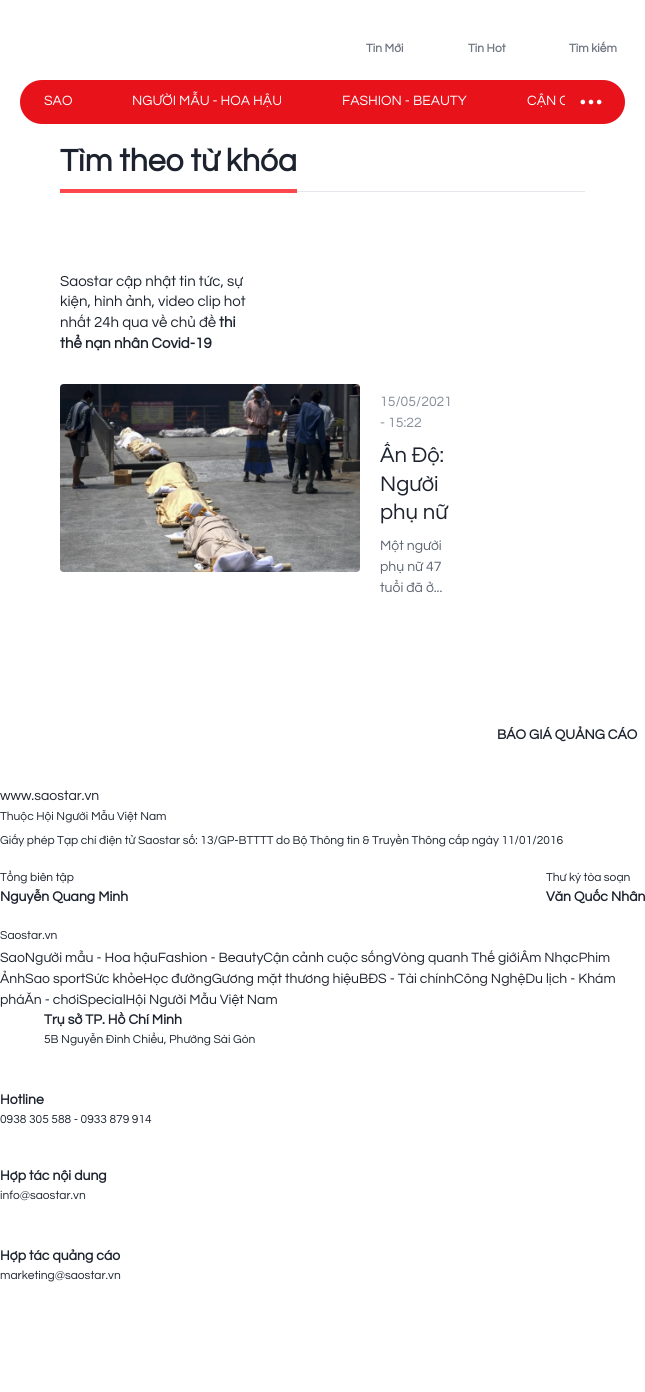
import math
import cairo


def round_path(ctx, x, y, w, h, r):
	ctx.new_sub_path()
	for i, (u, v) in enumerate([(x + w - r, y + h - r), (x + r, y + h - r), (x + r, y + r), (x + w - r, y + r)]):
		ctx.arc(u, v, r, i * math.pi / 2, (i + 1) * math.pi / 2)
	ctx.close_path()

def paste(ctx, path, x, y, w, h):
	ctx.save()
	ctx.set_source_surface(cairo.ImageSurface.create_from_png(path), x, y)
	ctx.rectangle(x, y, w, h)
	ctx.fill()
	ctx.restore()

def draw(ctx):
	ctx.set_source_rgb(1, 1, 1)
	ctx.paint()
	ctx.select_font_face('Questrial', cairo.FONT_SLANT_NORMAL, cairo.FONT_WEIGHT_BOLD)
	ctx.set_font_size(12)
	ctx.set_source_rgb(0.435, 0.459, 0.506)
	for x, y, s in [
		(366, 52, 'Tin Mới'),
		(468, 52, 'Tin Hot'),
		(569, 52, 'Tìm kiếm'),
	]:
		ctx.move_to(x, y)
		ctx.show_text(s)
	ctx.set_source_rgb(0.91, 0.071, 0.106)
	round_path(ctx, 20, 80, 605, 44, 22)
	ctx.fill()
	ctx.select_font_face('Questrial')
	ctx.set_font_size(14)
	ctx.set_source_rgb(1, 1, 1)
	for x, y, s in [
		(44, 105, 'SAO'),
		(132, 105, 'NGƯỜI MẪU - HOA HẬU'),
		(342, 105, 'FASHION - BEAUTY'),
	]:
		ctx.move_to(x, y)
		ctx.show_text(s)
	ctx.save()
	ctx.rectangle(44, 80, 521, 44)
	ctx.clip()
	ctx.move_to(527, 105)
	ctx.show_text('CẬN C')
	ctx.restore()
	paste(ctx, 'media/1.png', 580, 99, 22, 6)
	ctx.set_source_rgb(0.898, 0.906, 0.922)
	ctx.rectangle(297, 191, 288, 1)
	ctx.fill()
	ctx.select_font_face('Questrial', cairo.FONT_SLANT_NORMAL, cairo.FONT_WEIGHT_BOLD)
	ctx.set_font_size(32)
	ctx.set_source_rgb(0.114, 0.137, 0.18)
	ctx.move_to(60, 171)
	ctx.show_text('Tìm theo từ khóa')
	ctx.set_source_rgb(1, 0.278, 0.306)
	ctx.rectangle(60, 189, 237, 4)
	ctx.fill()
	ctx.select_font_face('Questrial')
	ctx.set_font_size(15)
	ctx.set_source_rgb(0.114, 0.137, 0.18)
	for x, y, s in [
		(60, 286, 'Saostar cập nhật tin tức, sự'),
		(60, 306, 'kiện, hình ảnh, video clip hot'),
		(60, 327, 'nhất 24h qua về chủ đề'),
	]:
		ctx.move_to(x, y)
		ctx.show_text(s)
	ctx.select_font_face('Questrial', cairo.FONT_SLANT_NORMAL, cairo.FONT_WEIGHT_BOLD)
	ctx.move_to(219, 327)
	ctx.show_text('thi')
	ctx.move_to(60, 348)
	ctx.show_text('thể nạn nhân Covid-19')
	paste(ctx, 'media/2.png', 60, 384, 300, 188)
	ctx.select_font_face('Questrial')
	ctx.set_font_size(14)
	ctx.set_source_rgb(0.525, 0.549, 0.592)
	ctx.move_to(380, 406)
	ctx.show_text('15/05/2021')
	ctx.move_to(380, 427)
	ctx.show_text('- 15:22')
	ctx.save()
	ctx.rectangle(380, 442, 72, 86)
	ctx.clip()
	ctx.set_font_size(22)
	ctx.set_source_rgb(0.114, 0.137, 0.18)
	ctx.move_to(380, 462)
	ctx.show_text('Ấn Độ:')
	ctx.restore()
	ctx.set_font_size(22)
	ctx.set_source_rgb(0.114, 0.137, 0.18)
	ctx.move_to(380, 491)
	ctx.show_text('Người')
	ctx.move_to(380, 519)
	ctx.show_text('phụ nữ')
	ctx.set_font_size(14)
	ctx.set_source_rgb(0.365, 0.392, 0.439)
	for x, y, s in [
		(380, 550, 'Một người'),
		(380, 571, 'phụ nữ 47'),
		(380, 592, 'tuổi đã ở...'),
	]:
		ctx.move_to(x, y)
		ctx.show_text(s)
	ctx.select_font_face('Questrial', cairo.FONT_SLANT_NORMAL, cairo.FONT_WEIGHT_BOLD)
	ctx.set_source_rgb(0.114, 0.137, 0.18)
	ctx.move_to(497, 739)
	ctx.show_text('BÁO GIÁ QUẢNG CÁO')
	ctx.select_font_face('Questrial')
	ctx.move_to(0, 800)
	ctx.show_text('www.saostar.vn')
	ctx.set_font_size(12)
	for x, y, s in [
		(0, 820, 'Thuộc Hội Người Mẫu Việt Nam'),
		(0, 844, 'Giấy phép Tạp chí điện tử Saostar số: 13/GP-BTTTT do Bộ Thông tin & Truyền Thông cấp ngày 11/01/2016'),
		(0, 881, 'Tổng biên tập'),
	]:
		ctx.move_to(x, y)
		ctx.show_text(s)
	ctx.select_font_face('Questrial', cairo.FONT_SLANT_NORMAL, cairo.FONT_WEIGHT_BOLD)
	ctx.set_font_size(14)
	ctx.move_to(0, 901)
	ctx.show_text('Nguyễn Quang Minh')
	ctx.select_font_face('Questrial')
	ctx.set_font_size(12)
	ctx.move_to(546, 881)
	ctx.show_text('Thư ký tòa soạn')
	ctx.select_font_face('Questrial', cairo.FONT_SLANT_NORMAL, cairo.FONT_WEIGHT_BOLD)
	ctx.set_font_size(14)
	ctx.move_to(546, 901)
	ctx.show_text('Văn Quốc Nhân')
	ctx.select_font_face('Questrial')
	ctx.set_font_size(12)
	ctx.move_to(0, 939)
	ctx.show_text('Saostar.vn')
	ctx.set_font_size(14)
	for x, y, s in [
		(0, 962, 'SaoNgười mẫu - Hoa hậuFashion - BeautyCận cảnh cuộc sốngVòng quanh Thế giớiÂm NhạcPhim'),
		(0, 983, 'ẢnhSao sportSức khỏeHọc đườngGương mặt thương hiệuBĐS - Tài chínhCông NghệDu lịch - Khám'),
		(0, 1004, 'pháĂn - chơiSpecialHội Người Mẫu Việt Nam'),
	]:
		ctx.move_to(x, y)
		ctx.show_text(s)
	ctx.select_font_face('Questrial', cairo.FONT_SLANT_NORMAL, cairo.FONT_WEIGHT_BOLD)
	ctx.move_to(44, 1024)
	ctx.show_text('Trụ sở TP. Hồ Chí Minh')
	ctx.select_font_face('Questrial')
	ctx.set_font_size(12)
	ctx.move_to(44, 1043)
	ctx.show_text('5B Nguyễn Đình Chiểu, Phường Sài Gòn')
	ctx.select_font_face('Questrial', cairo.FONT_SLANT_NORMAL, cairo.FONT_WEIGHT_BOLD)
	ctx.set_font_size(14)
	ctx.move_to(0, 1104)
	ctx.show_text('Hotline')
	ctx.select_font_face('Questrial')
	ctx.set_font_size(12)
	ctx.move_to(0, 1123)
	ctx.show_text('0938 305 588 - 0933 879 914')
	ctx.select_font_face('Questrial', cairo.FONT_SLANT_NORMAL, cairo.FONT_WEIGHT_BOLD)
	ctx.set_font_size(14)
	ctx.move_to(0, 1180)
	ctx.show_text('Hợp tác nội dung')
	ctx.select_font_face('Questrial')
	ctx.set_font_size(12)
	ctx.move_to(0, 1199)
	ctx.show_text('info@saostar.vn')
	ctx.select_font_face('Questrial', cairo.FONT_SLANT_NORMAL, cairo.FONT_WEIGHT_BOLD)
	ctx.set_font_size(14)
	ctx.move_to(0, 1260)
	ctx.show_text('Hợp tác quảng cáo')
	ctx.select_font_face('Questrial')
	ctx.set_font_size(12)
	ctx.move_to(0, 1279)
	ctx.show_text('marketing@saostar.vn')


surface = cairo.ImageSurface(cairo.FORMAT_RGB24, 645, 1392)
ctx = cairo.Context(surface)
options = cairo.FontOptions()
options.set_hint_metrics(cairo.HINT_METRICS_OFF)
options.set_hint_style(cairo.HINT_STYLE_NONE)
ctx.set_font_options(options)
ctx.set_miter_limit(4)
draw(ctx)
surface.write_to_png('image.png')
